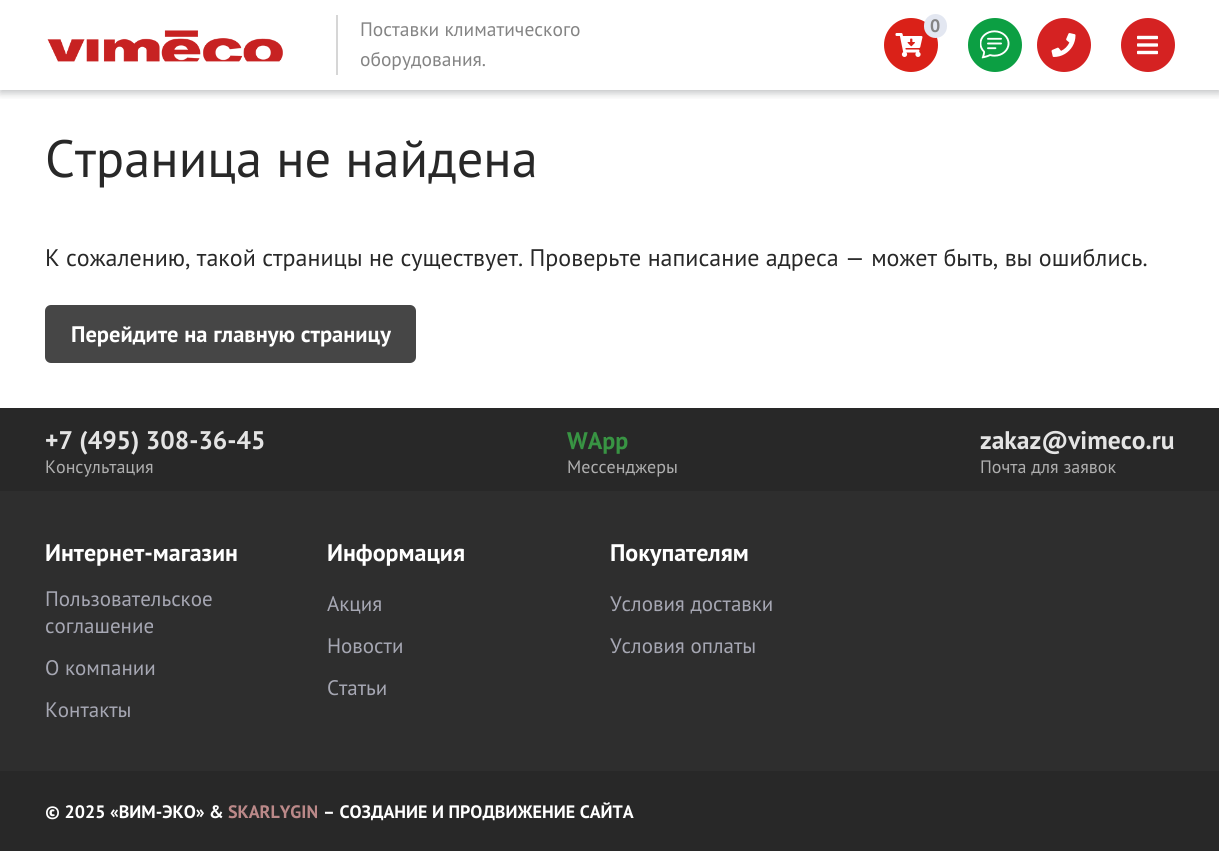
import math
import cairo


def round_path(ctx, x, y, w, h, r):
	ctx.new_sub_path()
	for i, (u, v) in enumerate([(x + w - r, y + h - r), (x + r, y + h - r), (x + r, y + r), (x + w - r, y + r)]):
		ctx.arc(u, v, r, i * math.pi / 2, (i + 1) * math.pi / 2)
	ctx.close_path()

def blur_box(ctx, x, y, w, h, r, blur, alpha):
	ctx.push_group_with_content(cairo.CONTENT_ALPHA)
	ctx.set_operator(cairo.OPERATOR_SOURCE)
	for i in range(15, -16, -2):
		e = blur * i / 6
		if min(w, h) + 2 * e > 0:
			ctx.set_source_rgba(0, 0, 0, alpha * math.erfc((i - 1) / 8.5) / 2)
			round_path(ctx, x - e, y - e, w + 2 * e, h + 2 * e, max(0, min(r + e + blur * .6, min(w, h) / 2 + e)))
			ctx.fill()
	ctx.mask(ctx.pop_group())

def paste(ctx, path, x, y, w, h):
	ctx.save()
	ctx.set_source_surface(cairo.ImageSurface.create_from_png(path), x, y)
	ctx.rectangle(x, y, w, h)
	ctx.fill()
	ctx.restore()

def draw(ctx):
	ctx.set_source_rgb(1, 1, 1)
	ctx.paint()
	ctx.save()
	ctx.rectangle(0, 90, 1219, 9)
	ctx.clip()
	ctx.set_source_rgb(0.271, 0.282, 0.306)
	blur_box(ctx, 0, 3, 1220, 90, 0, 4, 0.33)
	ctx.restore()
	paste(ctx, 'media/1.png', 47, 30, 236, 32)
	ctx.set_source_rgb(0.839, 0.839, 0.839)
	ctx.rectangle(336, 15, 2, 60)
	ctx.fill()
	ctx.select_font_face('PT Sans')
	ctx.set_font_size(19.5)
	ctx.set_source_rgb(0.518, 0.518, 0.518)
	ctx.move_to(360, 36)
	ctx.show_text('Поставки климатического')
	ctx.move_to(360, 66)
	ctx.show_text('оборудования.')
	ctx.set_source_rgb(0.855, 0.129, 0.094)
	ctx.new_path()
	ctx.arc(911, 45, 27, 0, 2 * math.pi)
	ctx.fill()
	paste(ctx, 'media/2.png', 895, 33, 28, 24)
	ctx.set_source_rgb(0.89, 0.906, 0.945)
	round_path(ctx, 924, 14, 23, 24, 11.5)
	ctx.fill()
	ctx.select_font_face('PT Sans', cairo.FONT_SLANT_NORMAL, cairo.FONT_WEIGHT_BOLD)
	ctx.set_font_size(18)
	ctx.set_source_rgb(0.518, 0.518, 0.518)
	ctx.move_to(930, 32)
	ctx.show_text('0')
	ctx.set_source_rgb(0.047, 0.624, 0.263)
	ctx.new_path()
	ctx.arc(995, 45, 27, 0, 2 * math.pi)
	ctx.fill()
	paste(ctx, 'media/3.png', 980, 30, 30, 29)
	ctx.set_source_rgb(0.835, 0.133, 0.133)
	ctx.arc(1064, 45, 27, 0, 2 * math.pi)
	ctx.fill()
	paste(ctx, 'media/4.png', 1051, 33, 25, 24)
	ctx.arc(1148, 45, 27, 0, 2 * math.pi)
	ctx.fill()
	paste(ctx, 'media/5.png', 1137, 35, 21, 20)
	ctx.select_font_face('PT Sans')
	ctx.set_font_size(52.5)
	ctx.set_source_rgb(0.157, 0.157, 0.157)
	ctx.move_to(45, 177)
	ctx.show_text('Страница не найдена')
	ctx.set_font_size(24)
	ctx.move_to(45, 266)
	ctx.show_text('К сожалению, такой страницы не существует. Проверьте написание адреса — может быть, вы ошиблись.')
	ctx.set_source_rgb(0.275, 0.275, 0.275)
	round_path(ctx, 45, 305, 371, 58, 6)
	ctx.fill()
	ctx.select_font_face('PT Sans', cairo.FONT_SLANT_NORMAL, cairo.FONT_WEIGHT_BOLD)
	ctx.set_font_size(22.5)
	ctx.set_source_rgb(1, 1, 1)
	ctx.move_to(71, 342)
	ctx.show_text('Перейдите на главную страницу')
	ctx.set_source_rgb(0.18, 0.18, 0.18)
	ctx.rectangle(0, 491, 1219, 280)
	ctx.fill()
	ctx.set_source_rgb(0.157, 0.157, 0.157)
	ctx.rectangle(0, 408, 1219, 83)
	ctx.fill()
	ctx.set_font_size(25.5)
	ctx.set_source_rgb(0.894, 0.894, 0.894)
	ctx.move_to(45, 449)
	ctx.show_text('+7 (495) 308-36-45')
	ctx.select_font_face('PT Sans')
	ctx.set_font_size(18)
	ctx.set_source_rgb(0.686, 0.686, 0.686)
	ctx.move_to(45, 473)
	ctx.show_text('Консультация')
	ctx.select_font_face('PT Sans', cairo.FONT_SLANT_NORMAL, cairo.FONT_WEIGHT_BOLD)
	ctx.set_font_size(24)
	ctx.set_source_rgb(0.22, 0.58, 0.263)
	ctx.move_to(567, 449)
	ctx.show_text('WApp')
	ctx.select_font_face('PT Sans')
	ctx.set_font_size(18)
	ctx.set_source_rgb(0.686, 0.686, 0.686)
	ctx.move_to(567, 473)
	ctx.show_text('Мессенджеры')
	ctx.select_font_face('PT Sans', cairo.FONT_SLANT_NORMAL, cairo.FONT_WEIGHT_BOLD)
	ctx.set_font_size(25.5)
	ctx.set_source_rgb(0.894, 0.894, 0.894)
	ctx.move_to(980, 449)
	ctx.show_text('zakaz@vimeco.ru')
	ctx.select_font_face('PT Sans')
	ctx.set_font_size(18)
	ctx.set_source_rgb(0.686, 0.686, 0.686)
	ctx.move_to(980, 473)
	ctx.show_text('Почта для заявок')
	ctx.select_font_face('PT Sans', cairo.FONT_SLANT_NORMAL, cairo.FONT_WEIGHT_BOLD)
	ctx.set_font_size(24)
	ctx.set_source_rgb(1, 1, 1)
	ctx.move_to(45, 561)
	ctx.show_text('Интернет-магазин')
	ctx.select_font_face('PT Sans')
	ctx.set_font_size(21)
	ctx.set_source_rgb(0.651, 0.655, 0.702)
	for x, y, s in [
		(45, 606, 'Пользовательское'),
		(45, 633, 'соглашение'),
		(45, 675, 'О компании'),
		(45, 717, 'Контакты'),
	]:
		ctx.move_to(x, y)
		ctx.show_text(s)
	ctx.select_font_face('PT Sans', cairo.FONT_SLANT_NORMAL, cairo.FONT_WEIGHT_BOLD)
	ctx.set_font_size(24)
	ctx.set_source_rgb(1, 1, 1)
	ctx.move_to(327, 561)
	ctx.show_text('Информация')
	ctx.select_font_face('PT Sans')
	ctx.set_font_size(21)
	ctx.set_source_rgb(0.651, 0.655, 0.702)
	for x, y, s in [
		(327, 611, 'Акция'),
		(327, 653, 'Новости'),
		(327, 695, 'Статьи'),
	]:
		ctx.move_to(x, y)
		ctx.show_text(s)
	ctx.select_font_face('PT Sans', cairo.FONT_SLANT_NORMAL, cairo.FONT_WEIGHT_BOLD)
	ctx.set_font_size(24)
	ctx.set_source_rgb(1, 1, 1)
	ctx.move_to(610, 561)
	ctx.show_text('Покупателям')
	ctx.select_font_face('PT Sans')
	ctx.set_font_size(21)
	ctx.set_source_rgb(0.651, 0.655, 0.702)
	ctx.move_to(610, 611)
	ctx.show_text('Условия доставки')
	ctx.move_to(610, 653)
	ctx.show_text('Условия оплаты')
	ctx.set_source_rgb(0.157, 0.157, 0.157)
	ctx.rectangle(0, 771, 1219, 80)
	ctx.fill()
	ctx.select_font_face('PT Sans', cairo.FONT_SLANT_NORMAL, cairo.FONT_WEIGHT_BOLD)
	ctx.set_font_size(18)
	ctx.set_source_rgb(1, 1, 1)
	ctx.move_to(45, 818)
	ctx.show_text('© 2025 «ВИМ-ЭКО» &')
	ctx.set_source_rgb(0.733, 0.537, 0.537)
	ctx.move_to(228, 818)
	ctx.show_text('SKARLYGIN')
	ctx.set_source_rgb(1, 1, 1)
	ctx.move_to(323, 818)
	ctx.show_text('– СОЗДАНИЕ И ПРОДВИЖЕНИЕ САЙТА')


surface = cairo.ImageSurface(cairo.FORMAT_RGB24, 1219, 856)
ctx = cairo.Context(surface)
options = cairo.FontOptions()
options.set_hint_metrics(cairo.HINT_METRICS_OFF)
options.set_hint_style(cairo.HINT_STYLE_NONE)
ctx.set_font_options(options)
ctx.set_miter_limit(4)
draw(ctx)
surface.write_to_png('image.png')
